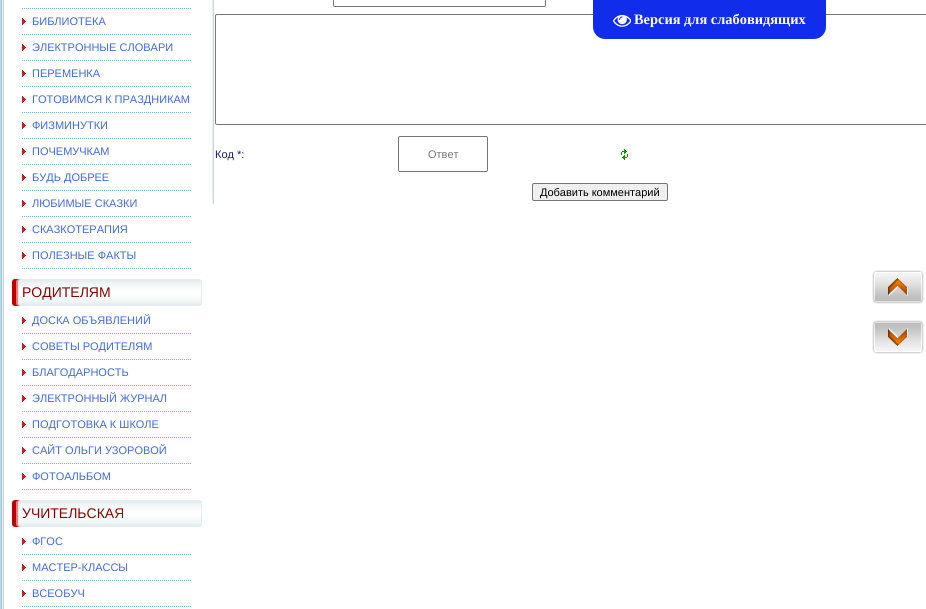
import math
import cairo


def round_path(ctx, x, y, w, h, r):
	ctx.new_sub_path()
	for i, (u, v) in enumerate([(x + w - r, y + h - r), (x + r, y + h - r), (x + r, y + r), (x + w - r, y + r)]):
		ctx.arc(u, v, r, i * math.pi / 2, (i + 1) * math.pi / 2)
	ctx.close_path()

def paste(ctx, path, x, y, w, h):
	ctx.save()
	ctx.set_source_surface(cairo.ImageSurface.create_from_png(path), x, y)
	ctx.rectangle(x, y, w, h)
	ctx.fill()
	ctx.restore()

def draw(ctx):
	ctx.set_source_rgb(0.796, 0.906, 0.945)
	ctx.paint()
	paste(ctx, 'media/1.png', 0, 0, 926, 609)
	paste(ctx, 'media/2.png', 2, 0, 2, 609)
	ctx.new_path()
	ctx.move_to(22, 8.5)
	ctx.line_to(192, 8.5)
	ctx.set_source_rgb(0.369, 0.761, 0.894)
	ctx.set_line_width(1)
	ctx.set_dash([1, 1])
	ctx.stroke()
	ctx.new_path()
	ctx.move_to(22, 34.5)
	ctx.line_to(192, 34.5)
	ctx.stroke()
	paste(ctx, 'media/3.png', 22, 18, 4, 7)
	ctx.select_font_face('Liberation Sans')
	ctx.set_font_size(11)
	ctx.set_source_rgb(0.255, 0.412, 0.882)
	ctx.move_to(32, 25)
	ctx.show_text('БИБЛИОТЕКА')
	ctx.new_path()
	ctx.move_to(22, 60.5)
	ctx.line_to(192, 60.5)
	ctx.set_source_rgb(0.369, 0.761, 0.894)
	ctx.stroke()
	paste(ctx, 'media/3.png', 22, 44, 4, 7)
	ctx.set_source_rgb(0.255, 0.412, 0.882)
	ctx.move_to(32, 51)
	ctx.show_text('ЭЛЕКТРОННЫЕ СЛОВАРИ')
	ctx.new_path()
	ctx.move_to(22, 86.5)
	ctx.line_to(192, 86.5)
	ctx.set_source_rgb(0.369, 0.761, 0.894)
	ctx.stroke()
	paste(ctx, 'media/3.png', 22, 70, 4, 7)
	ctx.set_source_rgb(0.255, 0.412, 0.882)
	ctx.move_to(32, 77)
	ctx.show_text('ПЕРЕМЕНКА')
	ctx.new_path()
	ctx.move_to(22, 112.5)
	ctx.line_to(192, 112.5)
	ctx.set_source_rgb(0.369, 0.761, 0.894)
	ctx.stroke()
	paste(ctx, 'media/3.png', 22, 96, 4, 7)
	ctx.set_source_rgb(0.255, 0.412, 0.882)
	ctx.move_to(32, 103)
	ctx.show_text('ГОТОВИМСЯ К ПРАЗДНИКАМ')
	ctx.new_path()
	ctx.move_to(22, 138.5)
	ctx.line_to(192, 138.5)
	ctx.set_source_rgb(0.369, 0.761, 0.894)
	ctx.stroke()
	paste(ctx, 'media/3.png', 22, 122, 4, 7)
	ctx.set_source_rgb(0.255, 0.412, 0.882)
	ctx.move_to(32, 129)
	ctx.show_text('ФИЗМИНУТКИ')
	ctx.new_path()
	ctx.move_to(22, 164.5)
	ctx.line_to(192, 164.5)
	ctx.set_source_rgb(0.369, 0.761, 0.894)
	ctx.stroke()
	paste(ctx, 'media/3.png', 22, 148, 4, 7)
	ctx.set_source_rgb(0.255, 0.412, 0.882)
	ctx.move_to(32, 155)
	ctx.show_text('ПОЧЕМУЧКАМ')
	ctx.new_path()
	ctx.move_to(22, 190.5)
	ctx.line_to(192, 190.5)
	ctx.set_source_rgb(0.369, 0.761, 0.894)
	ctx.stroke()
	paste(ctx, 'media/3.png', 22, 174, 4, 7)
	ctx.set_source_rgb(0.255, 0.412, 0.882)
	ctx.move_to(32, 181)
	ctx.show_text('БУДЬ ДОБРЕЕ')
	ctx.new_path()
	ctx.move_to(22, 216.5)
	ctx.line_to(192, 216.5)
	ctx.set_source_rgb(0.369, 0.761, 0.894)
	ctx.stroke()
	paste(ctx, 'media/3.png', 22, 200, 4, 7)
	ctx.set_source_rgb(0.255, 0.412, 0.882)
	ctx.move_to(32, 207)
	ctx.show_text('ЛЮБИМЫЕ СКАЗКИ')
	ctx.new_path()
	ctx.move_to(22, 242.5)
	ctx.line_to(192, 242.5)
	ctx.set_source_rgb(0.369, 0.761, 0.894)
	ctx.stroke()
	paste(ctx, 'media/3.png', 22, 226, 4, 7)
	ctx.set_source_rgb(0.255, 0.412, 0.882)
	ctx.move_to(32, 233)
	ctx.show_text('СКАЗКОТЕРАПИЯ')
	ctx.new_path()
	ctx.move_to(22, 268.5)
	ctx.line_to(192, 268.5)
	ctx.set_source_rgb(0.369, 0.761, 0.894)
	ctx.stroke()
	paste(ctx, 'media/3.png', 22, 252, 4, 7)
	ctx.set_source_rgb(0.255, 0.412, 0.882)
	ctx.move_to(32, 259)
	ctx.show_text('ПОЛЕЗНЫЕ ФАКТЫ')
	paste(ctx, 'media/4.png', 12, 279, 190, 27)
	ctx.set_font_size(14)
	ctx.set_source_rgb(0.545, 0, 0)
	ctx.move_to(22, 297)
	ctx.show_text('РОДИТЕЛЯМ')
	ctx.new_path()
	ctx.move_to(22, 333.5)
	ctx.line_to(192, 333.5)
	ctx.set_source_rgb(0.369, 0.761, 0.894)
	ctx.stroke()
	paste(ctx, 'media/3.png', 22, 317, 4, 7)
	ctx.set_font_size(11)
	ctx.set_source_rgb(0.255, 0.412, 0.882)
	ctx.move_to(32, 324)
	ctx.show_text('ДОСКА ОБЪЯВЛЕНИЙ')
	ctx.new_path()
	ctx.move_to(22, 359.5)
	ctx.line_to(192, 359.5)
	ctx.set_source_rgb(0.369, 0.761, 0.894)
	ctx.stroke()
	paste(ctx, 'media/3.png', 22, 343, 4, 7)
	ctx.set_source_rgb(0.255, 0.412, 0.882)
	ctx.move_to(32, 350)
	ctx.show_text('СОВЕТЫ РОДИТЕЛЯМ')
	ctx.new_path()
	ctx.move_to(22, 385.5)
	ctx.line_to(192, 385.5)
	ctx.set_source_rgb(0.369, 0.761, 0.894)
	ctx.stroke()
	paste(ctx, 'media/3.png', 22, 369, 4, 7)
	ctx.set_source_rgb(0.255, 0.412, 0.882)
	ctx.move_to(32, 376)
	ctx.show_text('БЛАГОДАРНОСТЬ')
	ctx.new_path()
	ctx.move_to(22, 411.5)
	ctx.line_to(192, 411.5)
	ctx.set_source_rgb(0.369, 0.761, 0.894)
	ctx.stroke()
	paste(ctx, 'media/3.png', 22, 395, 4, 7)
	ctx.set_source_rgb(0.255, 0.412, 0.882)
	ctx.move_to(32, 402)
	ctx.show_text('ЭЛЕКТРОННЫЙ ЖУРНАЛ')
	ctx.new_path()
	ctx.move_to(22, 437.5)
	ctx.line_to(192, 437.5)
	ctx.set_source_rgb(0.369, 0.761, 0.894)
	ctx.stroke()
	paste(ctx, 'media/3.png', 22, 421, 4, 7)
	ctx.set_source_rgb(0.255, 0.412, 0.882)
	ctx.move_to(32, 428)
	ctx.show_text('ПОДГОТОВКА К ШКОЛЕ')
	ctx.new_path()
	ctx.move_to(22, 463.5)
	ctx.line_to(192, 463.5)
	ctx.set_source_rgb(0.369, 0.761, 0.894)
	ctx.stroke()
	paste(ctx, 'media/3.png', 22, 447, 4, 7)
	ctx.set_source_rgb(0.255, 0.412, 0.882)
	ctx.move_to(32, 454)
	ctx.show_text('САЙТ ОЛЬГИ УЗОРОВОЙ')
	ctx.new_path()
	ctx.move_to(22, 489.5)
	ctx.line_to(192, 489.5)
	ctx.set_source_rgb(0.369, 0.761, 0.894)
	ctx.stroke()
	paste(ctx, 'media/3.png', 22, 473, 4, 7)
	ctx.set_source_rgb(0.255, 0.412, 0.882)
	ctx.move_to(32, 480)
	ctx.show_text('ФОТОАЛЬБОМ')
	paste(ctx, 'media/4.png', 12, 500, 190, 27)
	ctx.set_font_size(14)
	ctx.set_source_rgb(0.545, 0, 0)
	ctx.move_to(22, 518)
	ctx.show_text('УЧИТЕЛЬСКАЯ')
	ctx.new_path()
	ctx.move_to(22, 554.5)
	ctx.line_to(192, 554.5)
	ctx.set_source_rgb(0.369, 0.761, 0.894)
	ctx.stroke()
	paste(ctx, 'media/3.png', 22, 538, 4, 7)
	ctx.set_font_size(11)
	ctx.set_source_rgb(0.255, 0.412, 0.882)
	ctx.move_to(32, 545)
	ctx.show_text('ФГОС')
	ctx.new_path()
	ctx.move_to(22, 580.5)
	ctx.line_to(192, 580.5)
	ctx.set_source_rgb(0.369, 0.761, 0.894)
	ctx.stroke()
	paste(ctx, 'media/3.png', 22, 564, 4, 7)
	ctx.set_source_rgb(0.255, 0.412, 0.882)
	ctx.move_to(32, 571)
	ctx.show_text('МАСТЕР-КЛАССЫ')
	ctx.new_path()
	ctx.move_to(22, 606.5)
	ctx.line_to(192, 606.5)
	ctx.set_source_rgb(0.369, 0.761, 0.894)
	ctx.stroke()
	paste(ctx, 'media/3.png', 22, 590, 4, 7)
	ctx.set_source_rgb(0.255, 0.412, 0.882)
	ctx.move_to(32, 597)
	ctx.show_text('ВСЕОБУЧ')
	paste(ctx, 'media/5.png', 212, 0, 2, 204)
	round_path(ctx, 333.5, -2.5, 212, 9, 1.5)
	ctx.set_source_rgb(0.463, 0.463, 0.463)
	ctx.set_dash([])
	ctx.stroke()
	round_path(ctx, 215.5, 14.5, 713, 110, 1.5)
	ctx.stroke()
	ctx.set_source_rgb(0.098, 0.098, 0.439)
	ctx.move_to(215, 158)
	ctx.show_text('Код *:')
	round_path(ctx, 398.5, 136.5, 89, 35, 1.5)
	ctx.set_source_rgb(0.463, 0.463, 0.463)
	ctx.stroke()
	ctx.set_source_rgb(0.459, 0.459, 0.459)
	ctx.move_to(428, 158)
	ctx.show_text('Ответ')
	paste(ctx, 'media/6.png', 621, 149, 7, 11)
	ctx.set_source_rgb(0.937, 0.937, 0.937)
	round_path(ctx, 532.5, 183.5, 135, 17, 1.5)
	ctx.fill_preserve()
	ctx.set_source_rgb(0.463, 0.463, 0.463)
	ctx.stroke()
	ctx.set_source_rgb(0, 0, 0)
	ctx.move_to(540, 196)
	ctx.show_text('Добавить комментарий')
	paste(ctx, 'media/7.png', 872, 270, 52, 34)
	paste(ctx, 'media/8.png', 872, 320, 52, 34)
	ctx.set_source_rgb(0.071, 0.173, 0.922)
	ctx.new_path()
	ctx.move_to(593, 0)
	ctx.line_to(826, 0)
	ctx.line_to(826, 27)
	ctx.curve_to(826, 33.5, 820.5, 39, 814, 39)
	ctx.line_to(605, 39)
	ctx.curve_to(598.5, 39, 593, 33.5, 593, 27)
	ctx.close_path()
	ctx.fill()
	paste(ctx, 'media/9.png', 613, 14, 18, 13)
	ctx.select_font_face('Liberation Serif', cairo.FONT_SLANT_NORMAL, cairo.FONT_WEIGHT_BOLD)
	ctx.set_font_size(14.4)
	ctx.set_source_rgb(1, 1, 1)
	ctx.move_to(634, 24)
	ctx.show_text('Версия для слабовидящих')


surface = cairo.ImageSurface(cairo.FORMAT_RGB24, 926, 609)
ctx = cairo.Context(surface)
options = cairo.FontOptions()
options.set_hint_metrics(cairo.HINT_METRICS_OFF)
options.set_hint_style(cairo.HINT_STYLE_NONE)
ctx.set_font_options(options)
ctx.set_miter_limit(4)
draw(ctx)
surface.write_to_png('image.png')
